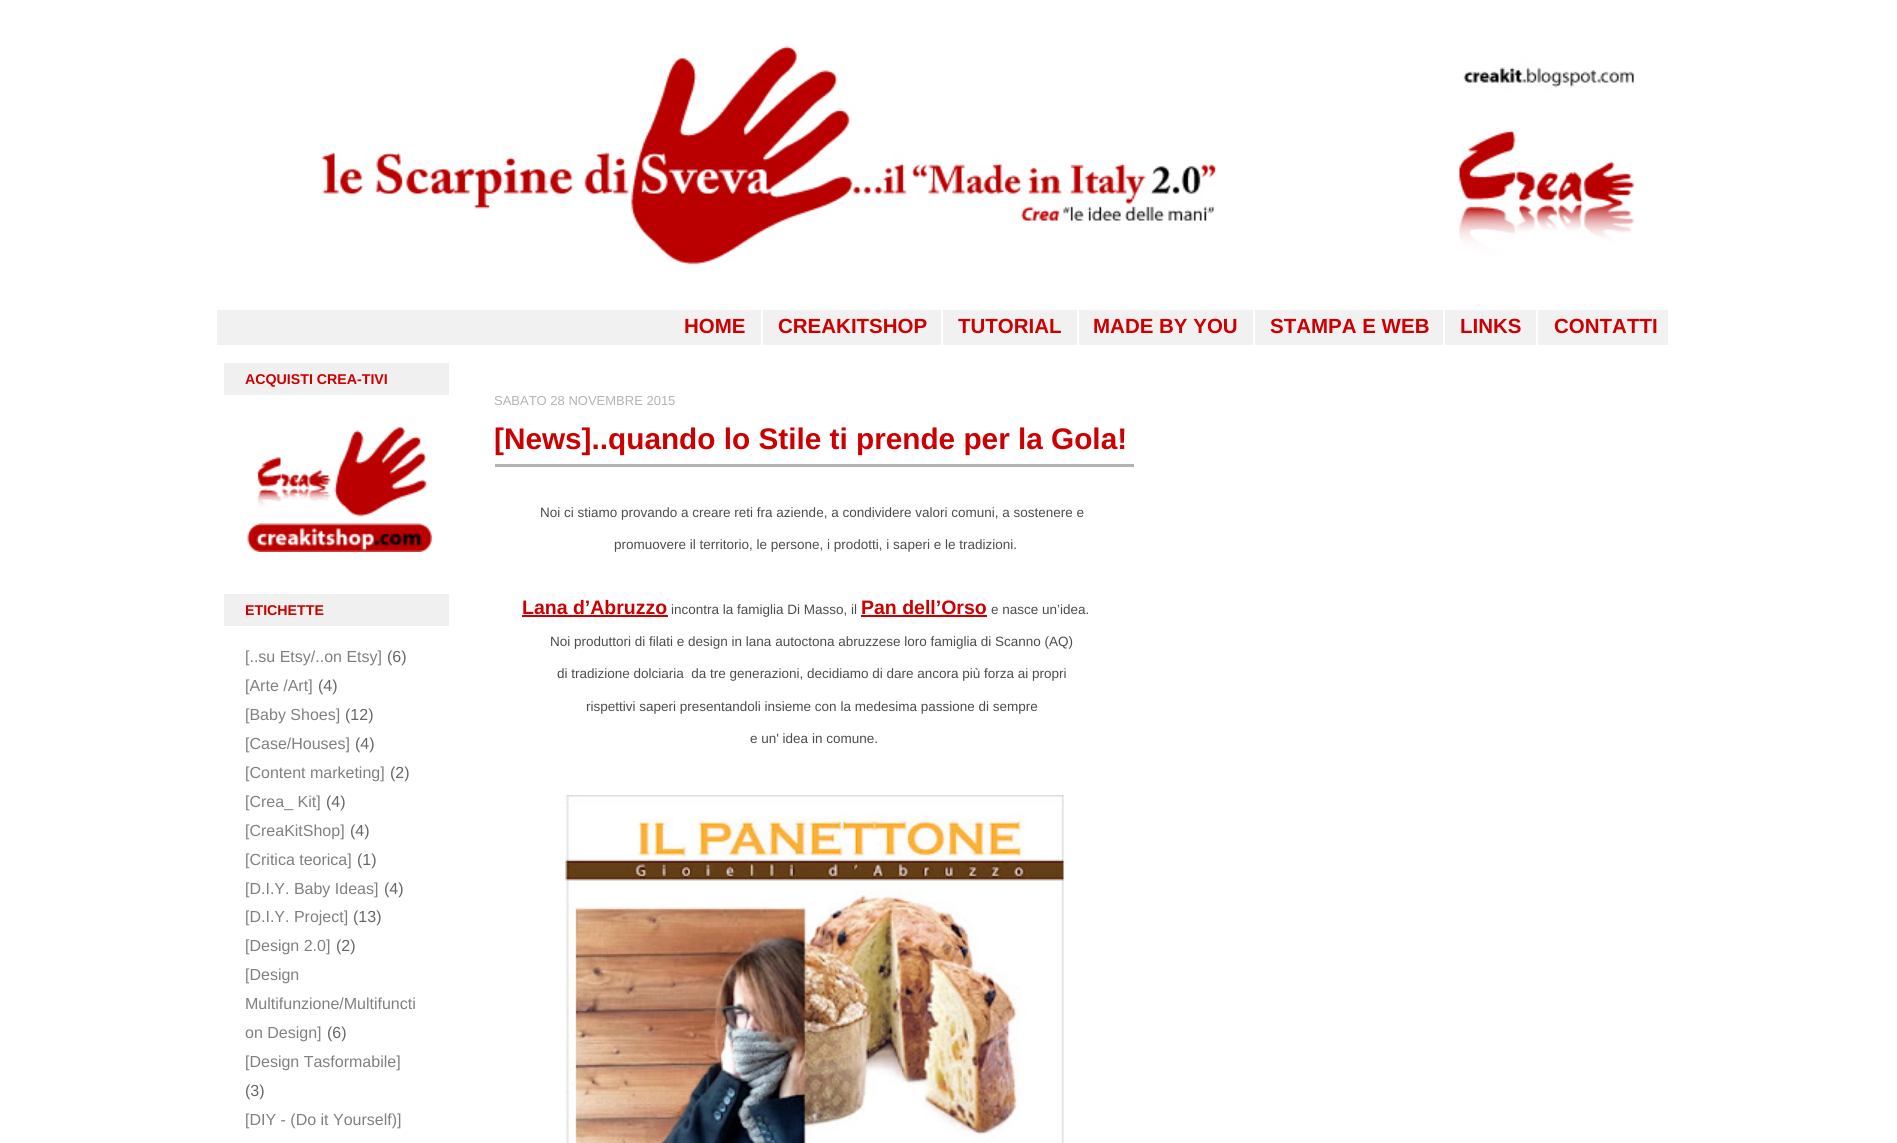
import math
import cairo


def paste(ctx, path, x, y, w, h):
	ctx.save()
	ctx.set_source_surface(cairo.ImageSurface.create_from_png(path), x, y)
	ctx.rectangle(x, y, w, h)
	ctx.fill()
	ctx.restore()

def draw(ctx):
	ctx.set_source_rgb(1, 1, 1)
	ctx.paint()
	paste(ctx, 'media/1.png', 322, 46, 1312, 219)
	ctx.set_source_rgb(0.945, 0.945, 0.945)
	ctx.rectangle(217, 310, 1451, 35)
	ctx.fill()
	ctx.select_font_face('Liberation Sans', cairo.FONT_SLANT_NORMAL, cairo.FONT_WEIGHT_BOLD)
	ctx.set_font_size(20.5)
	ctx.set_source_rgb(0.8, 0, 0)
	ctx.move_to(684, 333)
	ctx.show_text('HOME')
	ctx.set_source_rgb(1, 1, 1)
	ctx.rectangle(761, 305, 2, 43)
	ctx.fill()
	ctx.set_source_rgb(0.8, 0, 0)
	ctx.move_to(778, 333)
	ctx.show_text('CREAKITSHOP')
	ctx.set_source_rgb(1, 1, 1)
	ctx.rectangle(941, 305, 2, 43)
	ctx.fill()
	ctx.set_source_rgb(0.8, 0, 0)
	ctx.move_to(958, 333)
	ctx.show_text('TUTORIAL')
	ctx.set_source_rgb(1, 1, 1)
	ctx.rectangle(1077, 305, 2, 43)
	ctx.fill()
	ctx.set_source_rgb(0.8, 0, 0)
	ctx.move_to(1093, 333)
	ctx.show_text('MADE BY YOU')
	ctx.set_source_rgb(1, 1, 1)
	ctx.rectangle(1253, 305, 2, 43)
	ctx.fill()
	ctx.set_source_rgb(0.8, 0, 0)
	ctx.move_to(1270, 333)
	ctx.show_text('STAMPA E WEB')
	ctx.set_source_rgb(1, 1, 1)
	ctx.rectangle(1443, 305, 2, 43)
	ctx.fill()
	ctx.set_source_rgb(0.8, 0, 0)
	ctx.move_to(1460, 333)
	ctx.show_text('LINKS')
	ctx.set_source_rgb(1, 1, 1)
	ctx.rectangle(1536, 305, 2, 43)
	ctx.fill()
	ctx.set_source_rgb(0.8, 0, 0)
	ctx.move_to(1554, 333)
	ctx.show_text('CONTATTI')
	ctx.set_source_rgb(0.941, 0.941, 0.941)
	ctx.rectangle(224, 363, 225, 32)
	ctx.fill()
	ctx.set_font_size(14.2)
	ctx.set_source_rgb(0.8, 0, 0)
	ctx.move_to(245, 384)
	ctx.show_text('ACQUISTI CREA-TIVI')
	paste(ctx, 'media/2.png', 247, 427, 185, 125)
	ctx.set_source_rgb(0.941, 0.941, 0.941)
	ctx.rectangle(224, 594, 225, 32)
	ctx.fill()
	ctx.set_source_rgb(0.8, 0, 0)
	ctx.move_to(245, 615)
	ctx.show_text('ETICHETTE')
	ctx.select_font_face('Liberation Sans')
	ctx.set_font_size(16)
	ctx.set_source_rgb(0.502, 0.502, 0.502)
	ctx.move_to(245, 662)
	ctx.show_text('[..su Etsy/..on Etsy]')
	ctx.set_source_rgb(0.4, 0.4, 0.4)
	ctx.move_to(387, 662)
	ctx.show_text('(6)')
	ctx.set_source_rgb(0.502, 0.502, 0.502)
	ctx.move_to(245, 691)
	ctx.show_text('[Arte /Art]')
	ctx.set_source_rgb(0.4, 0.4, 0.4)
	ctx.move_to(318, 691)
	ctx.show_text('(4)')
	ctx.set_source_rgb(0.502, 0.502, 0.502)
	ctx.move_to(245, 720)
	ctx.show_text('[Baby Shoes]')
	ctx.set_source_rgb(0.4, 0.4, 0.4)
	ctx.move_to(345, 720)
	ctx.show_text('(12)')
	ctx.set_source_rgb(0.502, 0.502, 0.502)
	ctx.move_to(245, 749)
	ctx.show_text('[Case/Houses]')
	ctx.set_source_rgb(0.4, 0.4, 0.4)
	ctx.move_to(355, 749)
	ctx.show_text('(4)')
	ctx.set_source_rgb(0.502, 0.502, 0.502)
	ctx.move_to(245, 778)
	ctx.show_text('[Content marketing]')
	ctx.set_source_rgb(0.4, 0.4, 0.4)
	ctx.move_to(390, 778)
	ctx.show_text('(2)')
	ctx.set_source_rgb(0.502, 0.502, 0.502)
	ctx.move_to(245, 807)
	ctx.show_text('[Crea_ Kit]')
	ctx.set_source_rgb(0.4, 0.4, 0.4)
	ctx.move_to(326, 807)
	ctx.show_text('(4)')
	ctx.set_source_rgb(0.502, 0.502, 0.502)
	ctx.move_to(245, 836)
	ctx.show_text('[CreaKitShop]')
	ctx.set_source_rgb(0.4, 0.4, 0.4)
	ctx.move_to(350, 836)
	ctx.show_text('(4)')
	ctx.set_source_rgb(0.502, 0.502, 0.502)
	ctx.move_to(245, 865)
	ctx.show_text('[Critica teorica]')
	ctx.set_source_rgb(0.4, 0.4, 0.4)
	ctx.move_to(357, 865)
	ctx.show_text('(1)')
	ctx.set_source_rgb(0.502, 0.502, 0.502)
	ctx.move_to(245, 894)
	ctx.show_text('[D.I.Y. Baby Ideas]')
	ctx.set_source_rgb(0.4, 0.4, 0.4)
	ctx.move_to(384, 894)
	ctx.show_text('(4)')
	ctx.set_source_rgb(0.502, 0.502, 0.502)
	ctx.move_to(245, 922)
	ctx.show_text('[D.I.Y. Project]')
	ctx.set_source_rgb(0.4, 0.4, 0.4)
	ctx.move_to(353, 922)
	ctx.show_text('(13)')
	ctx.set_source_rgb(0.502, 0.502, 0.502)
	ctx.move_to(245, 951)
	ctx.show_text('[Design 2.0]')
	ctx.set_source_rgb(0.4, 0.4, 0.4)
	ctx.move_to(336, 951)
	ctx.show_text('(2)')
	ctx.set_source_rgb(0.502, 0.502, 0.502)
	for x, y, s in [
		(245, 980, '[Design'),
		(245, 1009, 'Multifunzione/Multifuncti'),
		(245, 1038, 'on Design]'),
	]:
		ctx.move_to(x, y)
		ctx.show_text(s)
	ctx.set_source_rgb(0.4, 0.4, 0.4)
	ctx.move_to(327, 1038)
	ctx.show_text('(6)')
	ctx.set_source_rgb(0.502, 0.502, 0.502)
	ctx.move_to(245, 1067)
	ctx.show_text('[Design Tasformabile]')
	ctx.set_source_rgb(0.4, 0.4, 0.4)
	ctx.move_to(245, 1096)
	ctx.show_text('(3)')
	ctx.set_source_rgb(0.502, 0.502, 0.502)
	ctx.move_to(245, 1125)
	ctx.show_text('[DIY - (Do it Yourself)]')
	ctx.set_font_size(13)
	ctx.set_source_rgb(0.702, 0.702, 0.702)
	ctx.move_to(494, 405)
	ctx.show_text('SABATO 28 NOVEMBRE 2015')
	ctx.rectangle(495, 464, 639, 3)
	ctx.fill()
	ctx.select_font_face('Liberation Sans', cairo.FONT_SLANT_NORMAL, cairo.FONT_WEIGHT_BOLD)
	ctx.set_font_size(29.75)
	ctx.set_source_rgb(0.8, 0, 0)
	ctx.move_to(494, 449)
	ctx.show_text('[News]..quando lo Stile ti prende per la Gola!')
	ctx.select_font_face('Liberation Sans')
	ctx.set_font_size(13.5)
	ctx.set_source_rgb(0.298, 0.298, 0.298)
	ctx.move_to(540, 517)
	ctx.show_text('Noi ci stiamo provando a creare reti fra aziende, a condividere valori comuni, a sostenere e')
	ctx.move_to(614, 549)
	ctx.show_text('promuovere il territorio, le persone, i prodotti, i saperi e le tradizioni.')
	ctx.select_font_face('Liberation Sans', cairo.FONT_SLANT_NORMAL, cairo.FONT_WEIGHT_BOLD)
	ctx.set_font_size(19.5)
	ctx.set_source_rgb(0.8, 0, 0)
	ctx.move_to(522, 614)
	ctx.show_text('Lana d’Abruzzo')
	ctx.select_font_face('Liberation Sans')
	ctx.set_font_size(13.5)
	ctx.set_source_rgb(0.298, 0.298, 0.298)
	ctx.move_to(671, 614)
	ctx.show_text('incontra la famiglia Di Masso, il')
	ctx.set_source_rgb(0.8, 0, 0)
	ctx.rectangle(522, 615, 146, 2)
	ctx.fill()
	ctx.rectangle(861, 615, 126, 2)
	ctx.fill()
	ctx.select_font_face('Liberation Sans', cairo.FONT_SLANT_NORMAL, cairo.FONT_WEIGHT_BOLD)
	ctx.set_font_size(19.5)
	ctx.move_to(861, 614)
	ctx.show_text('Pan dell’Orso')
	ctx.select_font_face('Liberation Sans')
	ctx.set_font_size(13.5)
	ctx.set_source_rgb(0.298, 0.298, 0.298)
	for x, y, s in [
		(991, 614, 'e nasce un’idea.'),
		(550, 646, 'Noi produttori di filati e design in lana autoctona abruzzese loro famiglia di Scanno (AQ)'),
		(557, 678, 'di tradizione dolciaria  da tre generazioni, decidiamo di dare ancora più forza ai propri'),
		(586, 711, 'rispettivi saperi presentandoli insieme con la medesima passione di sempre'),
		(750, 743, 'e un\' idea in comune.'),
	]:
		ctx.move_to(x, y)
		ctx.show_text(s)
	paste(ctx, 'media/3.png', 565, 795, 499, 348)


surface = cairo.ImageSurface(cairo.FORMAT_RGB24, 1897, 1143)
ctx = cairo.Context(surface)
options = cairo.FontOptions()
options.set_hint_metrics(cairo.HINT_METRICS_OFF)
options.set_hint_style(cairo.HINT_STYLE_NONE)
ctx.set_font_options(options)
ctx.set_miter_limit(4)
draw(ctx)
surface.write_to_png('image.png')
